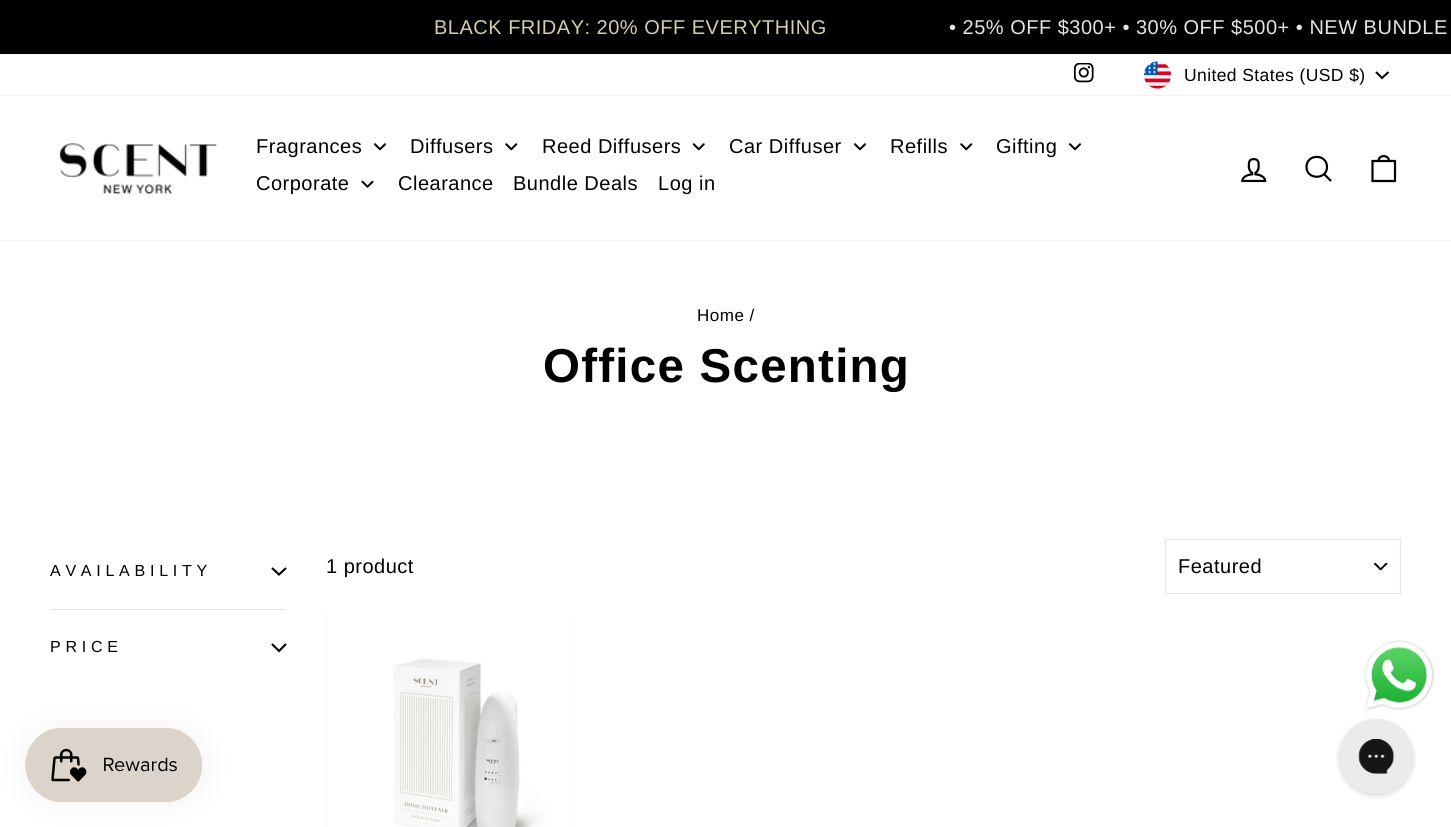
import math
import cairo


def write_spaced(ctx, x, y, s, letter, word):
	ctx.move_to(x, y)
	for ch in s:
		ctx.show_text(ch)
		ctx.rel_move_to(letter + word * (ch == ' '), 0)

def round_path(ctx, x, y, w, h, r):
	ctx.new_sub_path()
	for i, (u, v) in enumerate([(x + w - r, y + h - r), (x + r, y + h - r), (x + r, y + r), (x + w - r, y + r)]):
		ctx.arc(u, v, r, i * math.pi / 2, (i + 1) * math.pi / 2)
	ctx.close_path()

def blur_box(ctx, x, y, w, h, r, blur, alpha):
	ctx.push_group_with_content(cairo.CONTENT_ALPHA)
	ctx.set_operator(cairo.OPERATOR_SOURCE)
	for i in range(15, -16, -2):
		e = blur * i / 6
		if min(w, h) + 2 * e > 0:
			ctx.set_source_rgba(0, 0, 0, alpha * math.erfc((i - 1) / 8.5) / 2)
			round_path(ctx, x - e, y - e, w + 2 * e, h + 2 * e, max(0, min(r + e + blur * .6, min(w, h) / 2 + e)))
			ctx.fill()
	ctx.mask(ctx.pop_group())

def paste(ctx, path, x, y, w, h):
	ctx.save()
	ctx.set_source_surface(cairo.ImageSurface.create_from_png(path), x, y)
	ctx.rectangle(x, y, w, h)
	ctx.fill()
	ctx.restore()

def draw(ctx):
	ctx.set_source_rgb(1, 1, 1)
	ctx.paint()
	ctx.set_source_rgb(0, 0, 0)
	ctx.rectangle(0, 0, 1451, 54)
	ctx.fill()
	ctx.select_font_face('Liberation Sans')
	ctx.set_font_size(20)
	ctx.set_source_rgb(0.835, 0.808, 0.682)
	write_spaced(ctx, 434, 34, 'BLACK FRIDAY: 20% OFF EVERYTHING', 0.5, 0)
	ctx.set_source_rgb(0.898, 0.898, 0.898)
	write_spaced(ctx, 949, 34, '• 25% OFF $300+ • 30% OFF $500+ • NEW BUNDLE', 0.5, 0)
	paste(ctx, 'media/1.png', 1074, 63, 20, 20)
	paste(ctx, 'media/2.png', 1143, 61, 29, 28)
	ctx.select_font_face('Arimo')
	ctx.set_font_size(17.5)
	ctx.set_source_rgb(0, 0, 0)
	write_spaced(ctx, 1184, 81, 'United States (USD $)', 0.4, 0)
	ctx.new_path()
	ctx.move_to(1376, 72)
	ctx.line_to(1382, 78)
	ctx.line_to(1388.5, 72)
	ctx.stroke()
	ctx.set_source_rgb(0, 0, 0)
	blur_box(ctx, 0, 96, 1451, 144, 0, 0.5, 0.2)
	ctx.set_source_rgb(1, 1, 1)
	ctx.rectangle(0, 96, 1451, 144)
	ctx.fill()
	paste(ctx, 'media/3.png', 59, 143, 158, 52)
	ctx.set_font_size(20)
	ctx.set_source_rgb(0, 0, 0)
	write_spaced(ctx, 256, 153, 'Fragrances', 0.5, 0)
	paste(ctx, 'media/4.png', 374, 143, 12, 8)
	write_spaced(ctx, 410, 153, 'Diffusers', 0.5, 0)
	paste(ctx, 'media/5.png', 505, 143, 13, 8)
	write_spaced(ctx, 542, 153, 'Reed Diffusers', 0.5, 0)
	paste(ctx, 'media/6.png', 692, 143, 13, 8)
	write_spaced(ctx, 729, 153, 'Car Diffuser', 0.5, 0)
	paste(ctx, 'media/4.png', 854, 143, 12, 8)
	write_spaced(ctx, 890, 153, 'Refills', 0.5, 0)
	paste(ctx, 'media/5.png', 960, 143, 13, 8)
	write_spaced(ctx, 996, 153, 'Gifting', 0.5, 0)
	paste(ctx, 'media/4.png', 1069, 143, 12, 8)
	write_spaced(ctx, 256, 190, 'Corporate', 0.5, 0)
	paste(ctx, 'media/7.png', 361, 180, 13, 8)
	for x, y, s in [
		(398, 190, 'Clearance'),
		(513, 190, 'Bundle Deals'),
		(658, 190, 'Log in'),
	]:
		write_spaced(ctx, x, y, s, 0.5, 0)
	paste(ctx, 'media/8.png', 1241, 158, 26, 25)
	ctx.new_path()
	ctx.move_to(1327, 167)
	ctx.curve_to(1327, 180, 1306.5, 180, 1306.5, 167)
	ctx.curve_to(1306.5, 153.5, 1327, 153.5, 1327, 167)
	ctx.close_path()
	ctx.move_to(1331, 181)
	ctx.line_to(1324, 174)
	ctx.set_line_width(2.2)
	ctx.stroke()
	ctx.new_path()
	ctx.move_to(1372.5, 161)
	ctx.line_to(1395, 161)
	ctx.line_to(1395, 181)
	ctx.line_to(1372.5, 181)
	ctx.close_path()
	ctx.move_to(1378.5, 161)
	ctx.curve_to(1378.5, 154.5, 1389, 154.5, 1389, 161)
	ctx.stroke()
	ctx.set_font_size(17)
	write_spaced(ctx, 697, 321, 'Home /', 0.5, 0)
	ctx.select_font_face('Arimo', cairo.FONT_SLANT_NORMAL, cairo.FONT_WEIGHT_BOLD)
	ctx.set_font_size(47.5)
	write_spaced(ctx, 543, 382, 'Office Scenting', 1.25, 0)
	ctx.select_font_face('Arimo')
	ctx.set_font_size(16)
	write_spaced(ctx, 50, 576, 'AVAILABILITY', 4.75, 0)
	ctx.new_path()
	ctx.move_to(272, 568)
	ctx.line_to(279, 574.5)
	ctx.line_to(286, 568)
	ctx.set_line_width(2.1)
	ctx.stroke()
	ctx.set_source_rgb(0.91, 0.91, 0.882)
	ctx.rectangle(50, 609, 236, 1)
	ctx.fill()
	ctx.set_source_rgb(0, 0, 0)
	write_spaced(ctx, 50, 652, 'PRICE', 4.75, 0)
	ctx.new_path()
	ctx.move_to(272, 644)
	ctx.line_to(279, 651)
	ctx.line_to(286, 644)
	ctx.stroke()
	ctx.set_font_size(20)
	write_spaced(ctx, 326, 573, '1 product', 0.5, 0)
	paste(ctx, 'media/9.png', 1374, 563, 14, 8)
	ctx.rectangle(1165.5, 539.5, 235, 54)
	ctx.set_source_rgb(0.91, 0.91, 0.882)
	ctx.set_line_width(1)
	ctx.stroke()
	ctx.set_source_rgb(0, 0, 0)
	write_spaced(ctx, 1178, 573, 'Featured', 0.5, 0)
	ctx.set_source_rgb(0.898, 0.898, 0.898)
	ctx.rectangle(326, 613, 248, 214)
	ctx.fill()
	paste(ctx, 'media/10.png', 326, 613, 248, 214)
	ctx.set_source_rgb(0, 0, 0)
	blur_box(ctx, 25, 728, 178, 75, 37.5, 15.5, 0.05)
	paste(ctx, 'media/11.png', 25, 728, 178, 74)
	paste(ctx, 'media/12.png', 1364, 640, 71, 71)
	paste(ctx, 'media/13.png', 1336, 718, 80, 81)


surface = cairo.ImageSurface(cairo.FORMAT_RGB24, 1451, 827)
ctx = cairo.Context(surface)
options = cairo.FontOptions()
options.set_hint_metrics(cairo.HINT_METRICS_OFF)
options.set_hint_style(cairo.HINT_STYLE_NONE)
ctx.set_font_options(options)
ctx.set_miter_limit(4)
draw(ctx)
surface.write_to_png('image.png')
